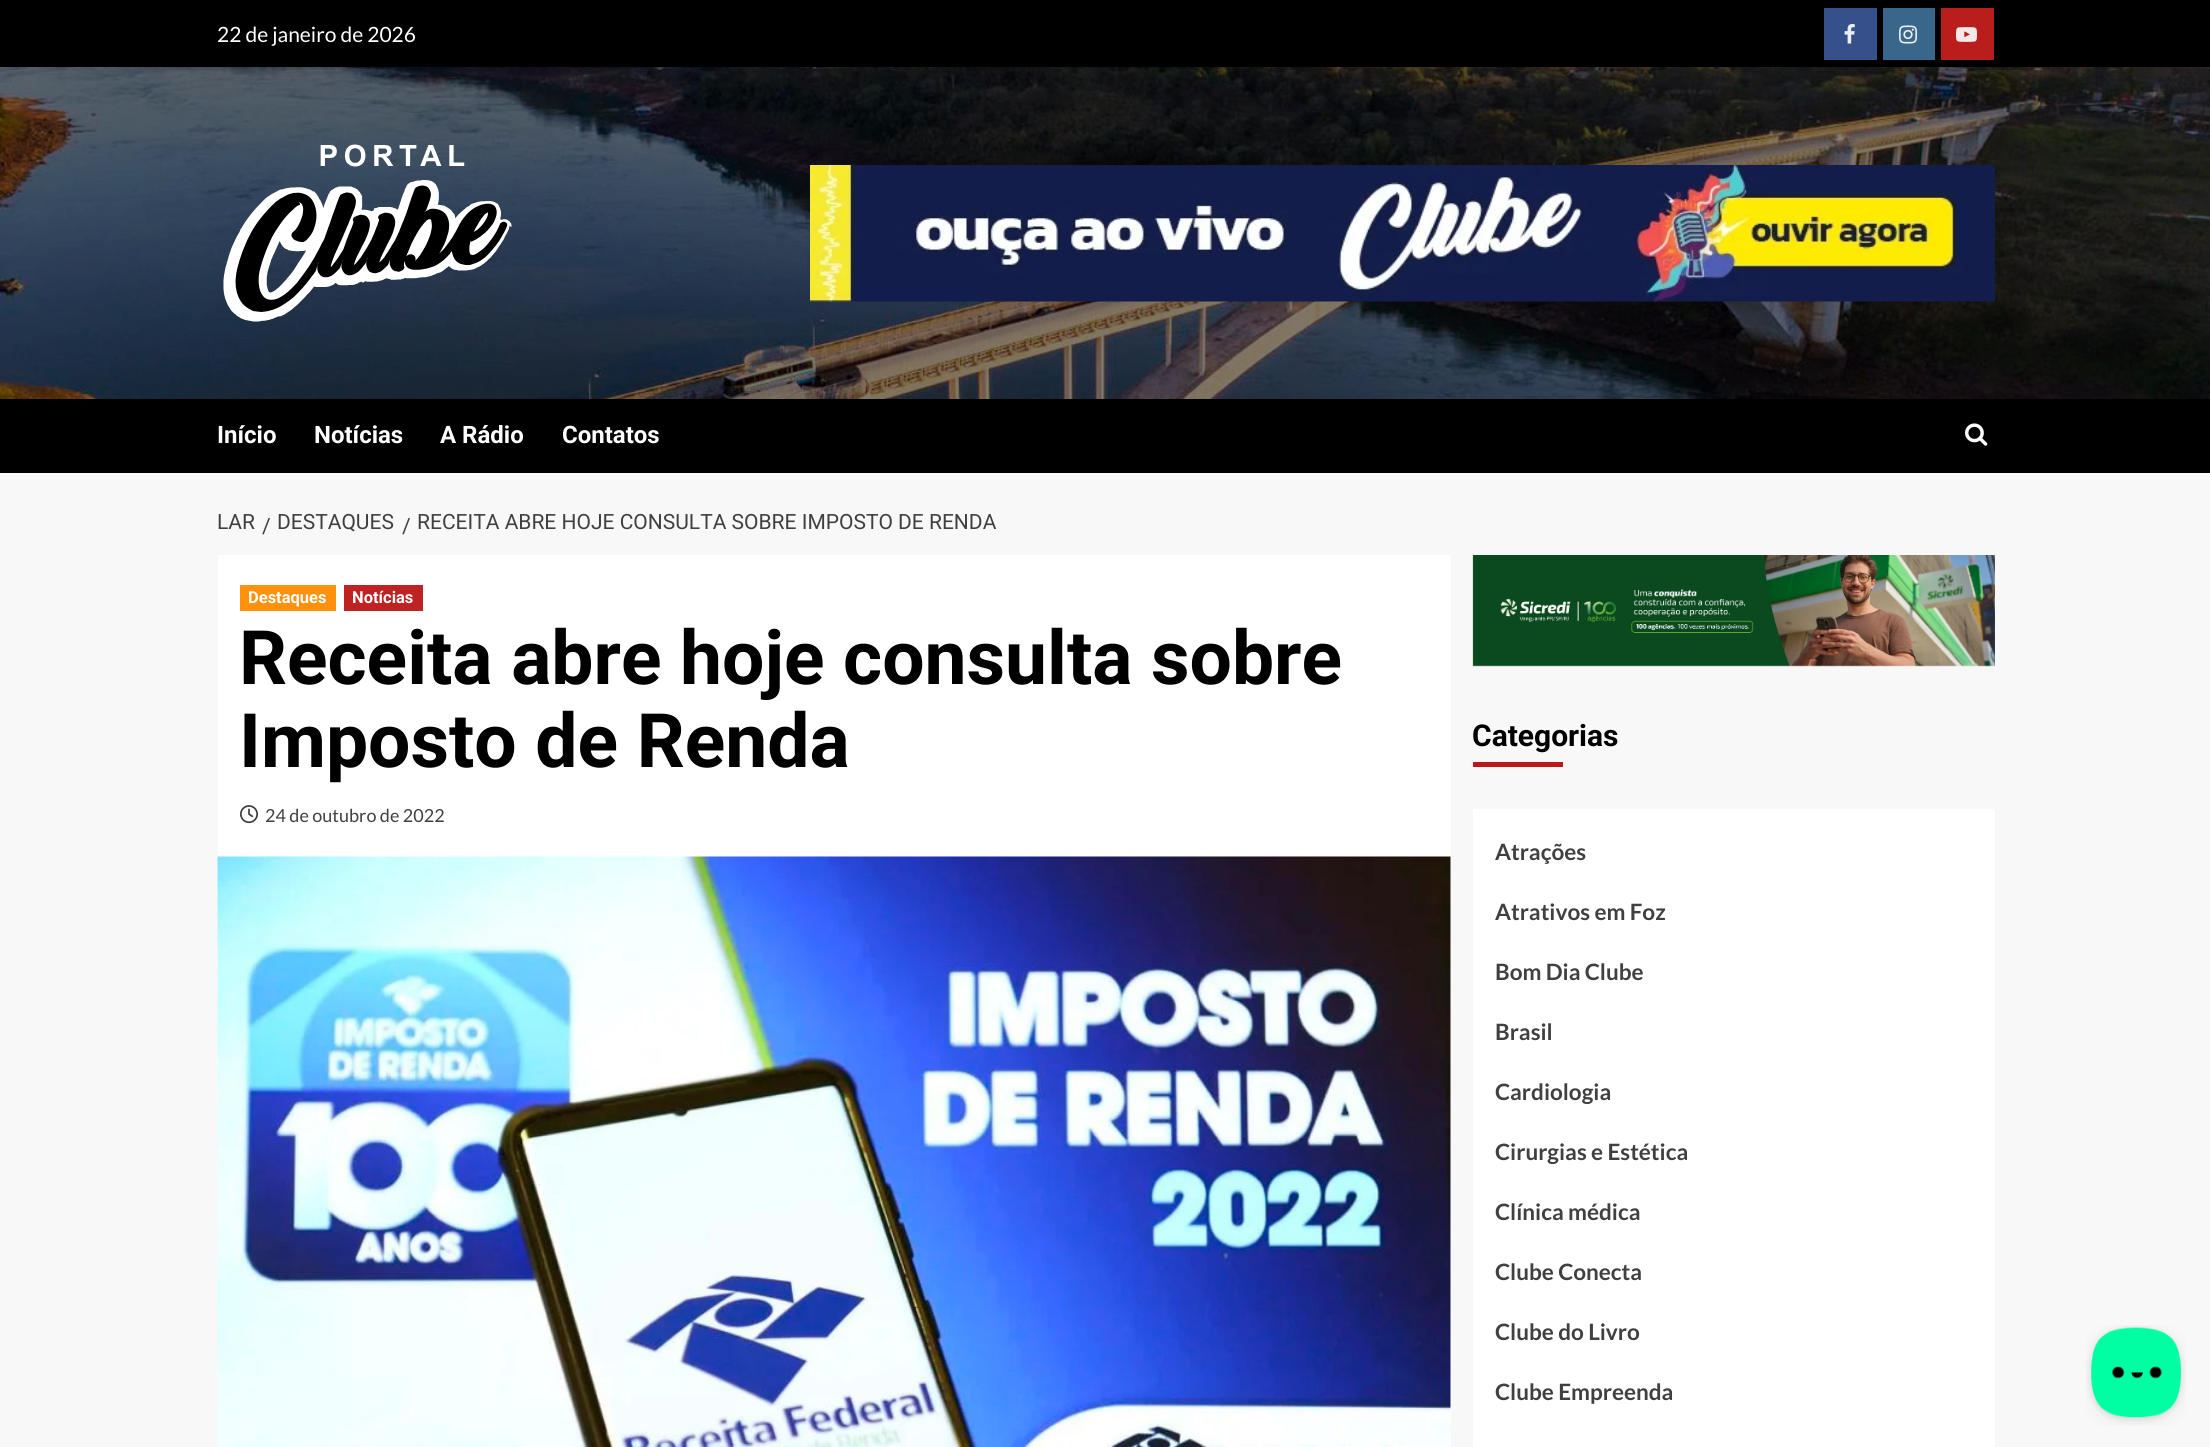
import math
import cairo


def paste(ctx, path, x, y, w, h):
	ctx.save()
	ctx.set_source_surface(cairo.ImageSurface.create_from_png(path), x, y)
	ctx.rectangle(x, y, w, h)
	ctx.fill()
	ctx.restore()

def draw(ctx):
	ctx.set_source_rgb(0.969, 0.969, 0.969)
	ctx.paint()
	ctx.set_source_rgb(0, 0, 0)
	ctx.rectangle(0, 0, 2210, 68)
	ctx.fill()
	ctx.select_font_face('Lato')
	ctx.set_font_size(21)
	ctx.set_source_rgb(1, 1, 1)
	ctx.move_to(217, 42)
	ctx.show_text('22 de janeiro de 2026')
	ctx.set_source_rgb(0.208, 0.314, 0.541)
	ctx.rectangle(1824, 8, 53, 52)
	ctx.fill()
	paste(ctx, 'media/1.png', 1844, 24, 11, 20)
	ctx.set_source_rgb(0.224, 0.404, 0.549)
	ctx.rectangle(1883, 8, 52, 52)
	ctx.fill()
	paste(ctx, 'media/2.png', 1899, 25, 18, 19)
	ctx.set_source_rgb(0.725, 0.114, 0.11)
	ctx.rectangle(1941, 8, 53, 52)
	ctx.fill()
	paste(ctx, 'media/3.png', 1956, 27, 21, 15)
	paste(ctx, 'media/4.png', 0, 67, 2210, 332)
	paste(ctx, 'media/5.png', 223, 144, 289, 178)
	paste(ctx, 'media/6.png', 810, 165, 1185, 137)
	ctx.set_source_rgb(0, 0, 0)
	ctx.rectangle(0, 399, 2210, 74)
	ctx.fill()
	ctx.select_font_face('Roboto', cairo.FONT_SLANT_NORMAL, cairo.FONT_WEIGHT_BOLD)
	ctx.set_font_size(24)
	ctx.set_source_rgb(1, 1, 1)
	for x, y, s in [
		(217, 443, 'Início'),
		(314, 443, 'Notícias'),
		(440, 443, 'A Rádio'),
		(562, 443, 'Contatos'),
	]:
		ctx.move_to(x, y)
		ctx.show_text(s)
	paste(ctx, 'media/7.png', 1965, 423, 23, 23)
	ctx.select_font_face('Roboto')
	ctx.set_font_size(21)
	ctx.set_source_rgb(0.251, 0.251, 0.251)
	for x, y, s in [
		(217, 529, 'LAR'),
		(262, 533, '/'),
		(277, 529, 'DESTAQUES'),
		(402, 533, '/'),
		(417, 529, 'RECEITA ABRE HOJE CONSULTA SOBRE IMPOSTO DE RENDA'),
	]:
		ctx.move_to(x, y)
		ctx.show_text(s)
	ctx.set_source_rgb(1, 1, 1)
	ctx.rectangle(218, 555, 1233, 892)
	ctx.fill()
	ctx.set_source_rgb(1, 0.569, 0.047)
	ctx.rectangle(240, 585, 96, 26)
	ctx.fill()
	ctx.select_font_face('Roboto', cairo.FONT_SLANT_NORMAL, cairo.FONT_WEIGHT_BOLD)
	ctx.set_font_size(16.5)
	ctx.set_source_rgb(1, 1, 1)
	ctx.move_to(248, 603)
	ctx.show_text('Destaques')
	ctx.set_source_rgb(0.745, 0.133, 0.133)
	ctx.rectangle(344, 585, 79, 26)
	ctx.fill()
	ctx.set_source_rgb(1, 1, 1)
	ctx.move_to(352, 603)
	ctx.show_text('Notícias')
	ctx.set_font_size(75)
	ctx.set_source_rgb(0, 0, 0)
	ctx.move_to(239, 684)
	ctx.show_text('Receita abre hoje consulta sobre')
	ctx.move_to(239, 767)
	ctx.show_text('Imposto de Renda')
	paste(ctx, 'media/8.png', 240, 805, 18, 19)
	ctx.select_font_face('Lato')
	ctx.set_font_size(18)
	ctx.set_source_rgb(0.251, 0.251, 0.251)
	ctx.move_to(265, 822)
	ctx.show_text('24 de outubro de 2022')
	paste(ctx, 'media/9.png', 217, 856, 1234, 591)
	paste(ctx, 'media/10.png', 1472, 555, 523, 112)
	ctx.select_font_face('Roboto', cairo.FONT_SLANT_NORMAL, cairo.FONT_WEIGHT_BOLD)
	ctx.set_font_size(30)
	ctx.set_source_rgb(0, 0, 0)
	ctx.move_to(1472, 746)
	ctx.show_text('Categorias')
	ctx.set_source_rgb(0.733, 0.098, 0.098)
	ctx.rectangle(1473, 762, 90, 5)
	ctx.fill()
	ctx.set_source_rgb(1, 1, 1)
	ctx.rectangle(1473, 809, 522, 638)
	ctx.fill()
	ctx.select_font_face('Lato', cairo.FONT_SLANT_NORMAL, cairo.FONT_WEIGHT_BOLD)
	ctx.set_font_size(22.5)
	ctx.set_source_rgb(0.251, 0.251, 0.251)
	for x, y, s in [
		(1495, 860, 'Atrações'),
		(1495, 920, 'Atrativos em Foz'),
		(1495, 980, 'Bom Dia Clube'),
		(1495, 1040, 'Brasil'),
		(1495, 1100, 'Cardiologia'),
		(1495, 1160, 'Cirurgias e Estética'),
		(1495, 1220, 'Clínica médica'),
		(1495, 1280, 'Clube Conecta'),
		(1495, 1340, 'Clube do Livro'),
		(1495, 1400, 'Clube Empreenda'),
	]:
		ctx.move_to(x, y)
		ctx.show_text(s)
	paste(ctx, 'media/11.png', 2086, 1325, 100, 101)


surface = cairo.ImageSurface(cairo.FORMAT_RGB24, 2210, 1447)
ctx = cairo.Context(surface)
options = cairo.FontOptions()
options.set_hint_metrics(cairo.HINT_METRICS_OFF)
options.set_hint_style(cairo.HINT_STYLE_NONE)
ctx.set_font_options(options)
ctx.set_miter_limit(4)
draw(ctx)
surface.write_to_png('image.png')
